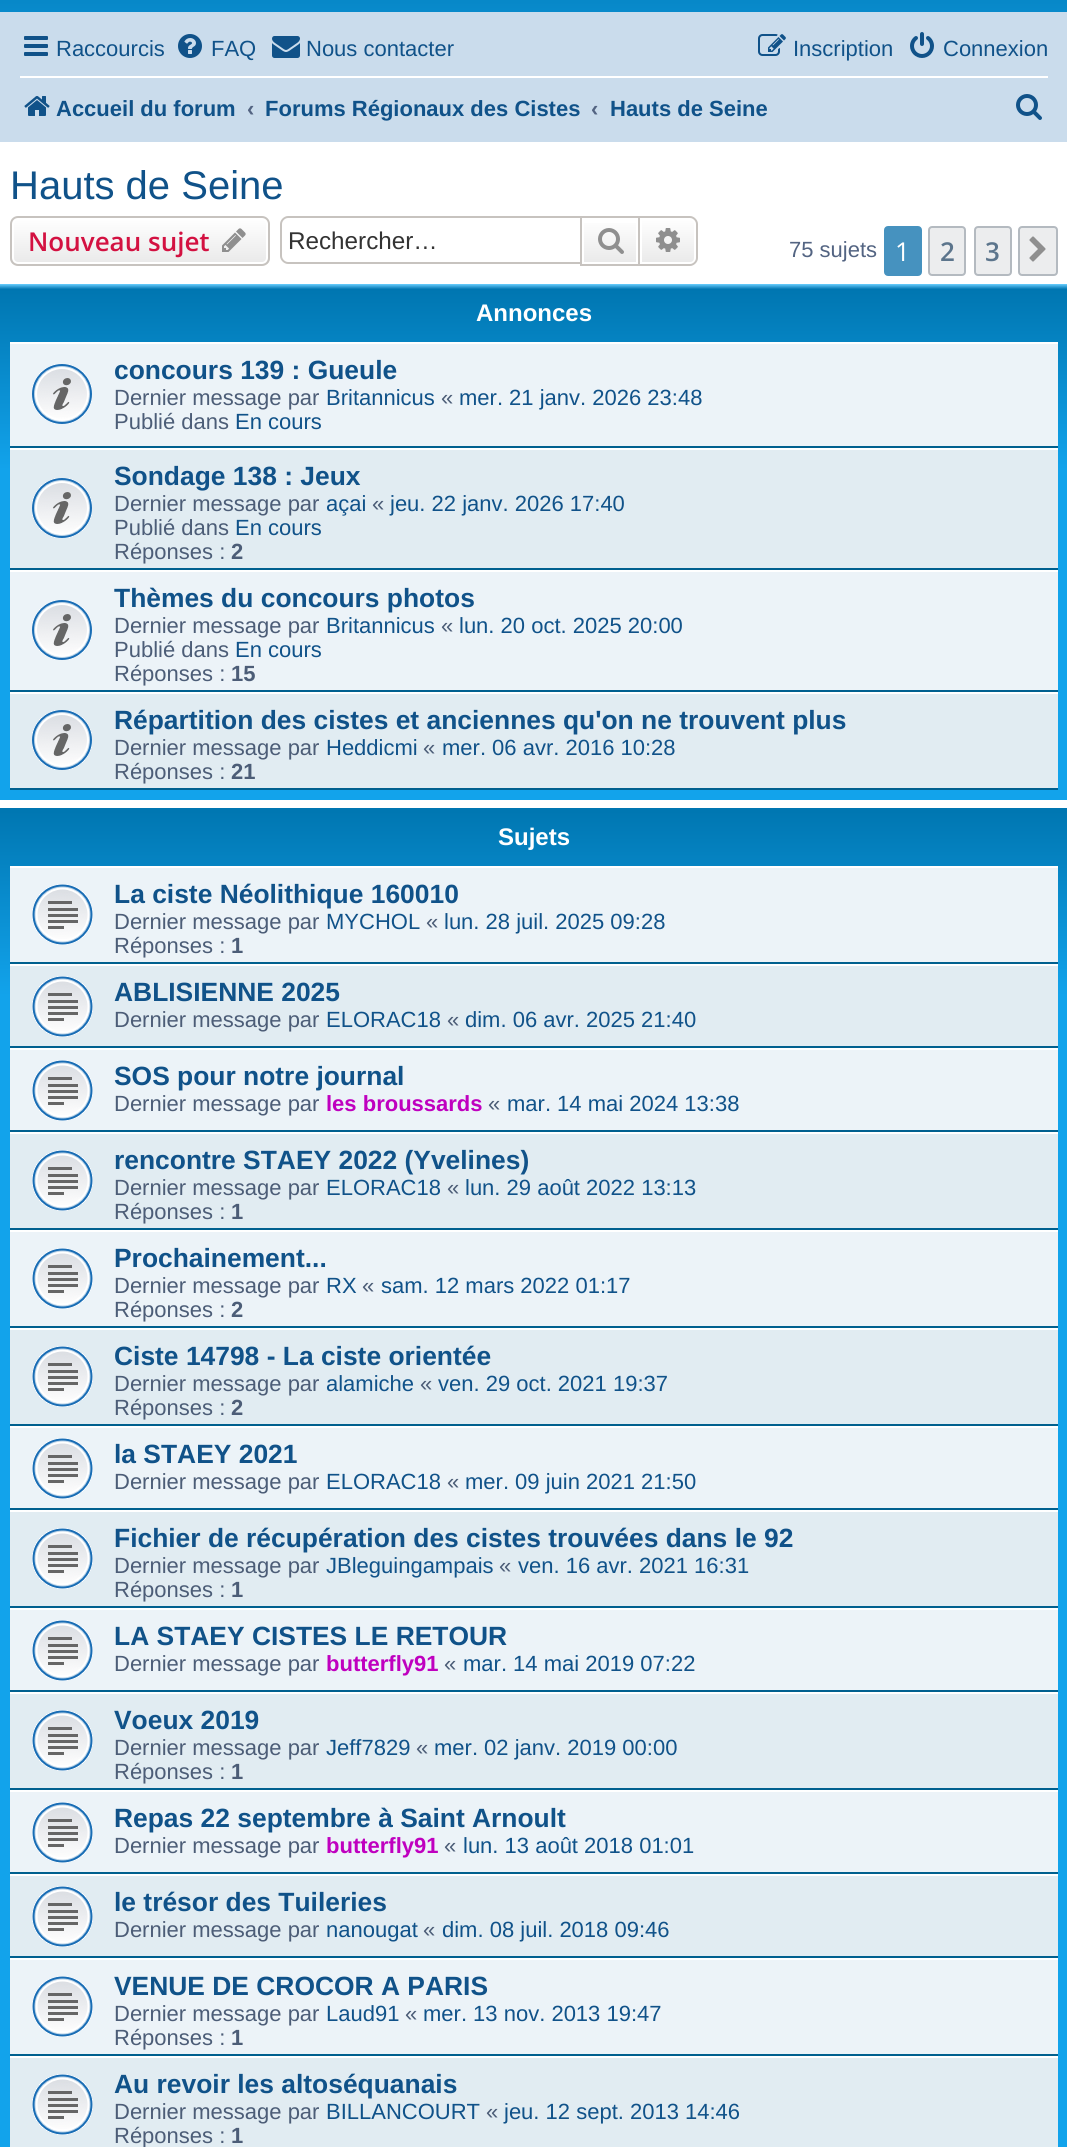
import math
import cairo


def round_path(ctx, x, y, w, h, r):
	ctx.new_sub_path()
	for i, (u, v) in enumerate([(x + w - r, y + h - r), (x + r, y + h - r), (x + r, y + r), (x + w - r, y + r)]):
		ctx.arc(u, v, r, i * math.pi / 2, (i + 1) * math.pi / 2)
	ctx.close_path()

def paste(ctx, path, x, y, w, h):
	ctx.save()
	ctx.set_source_surface(cairo.ImageSurface.create_from_png(path), x, y)
	ctx.rectangle(x, y, w, h)
	ctx.fill()
	ctx.restore()

def draw(ctx):
	ctx.set_source_rgb(1, 1, 1)
	ctx.paint()
	gradient = cairo.LinearGradient(534, -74, 534, 110)
	gradient.add_color_stop_rgba(0, 0.416, 0.808, 1, 1)
	gradient.add_color_stop_rgba(0.02, 0, 0.463, 0.694, 1)
	gradient.add_color_stop_rgba(1, 0.071, 0.639, 0.922, 1)
	ctx.set_source(gradient)
	ctx.rectangle(0, 0, 1067, 12)
	ctx.fill()
	ctx.set_source_rgb(0.792, 0.863, 0.922)
	ctx.rectangle(0, 12, 1067, 130)
	ctx.fill()
	paste(ctx, 'media/1.png', 24, 36, 24, 20)
	ctx.select_font_face('Liberation Sans')
	ctx.set_font_size(22)
	ctx.set_source_rgb(0.063, 0.322, 0.537)
	ctx.move_to(56, 56)
	ctx.show_text('Raccourcis')
	paste(ctx, 'media/2.png', 178, 34, 24, 24)
	ctx.move_to(211, 56)
	ctx.show_text('FAQ')
	paste(ctx, 'media/3.png', 272, 36, 28, 22)
	ctx.move_to(306, 56)
	ctx.show_text('Nous contacter')
	paste(ctx, 'media/4.png', 758, 34, 28, 22)
	ctx.move_to(793, 56)
	ctx.show_text('Inscription')
	paste(ctx, 'media/5.png', 910, 32, 24, 26)
	ctx.move_to(943, 56)
	ctx.show_text('Connexion')
	ctx.set_source_rgb(1, 1, 1)
	ctx.rectangle(20, 76, 1028, 2)
	ctx.fill()
	paste(ctx, 'media/6.png', 24, 96, 26, 20)
	ctx.select_font_face('Liberation Sans', cairo.FONT_SLANT_NORMAL, cairo.FONT_WEIGHT_BOLD)
	ctx.set_source_rgb(0.063, 0.322, 0.537)
	ctx.move_to(56, 116)
	ctx.show_text('Accueil du forum')
	ctx.set_source_rgb(0.325, 0.392, 0.51)
	ctx.move_to(247, 116)
	ctx.show_text('‹')
	ctx.set_source_rgb(0.063, 0.322, 0.537)
	ctx.move_to(265, 116)
	ctx.show_text('Forums Régionaux des Cistes')
	ctx.set_source_rgb(0.325, 0.392, 0.51)
	ctx.move_to(591, 116)
	ctx.show_text('‹')
	ctx.set_source_rgb(0.063, 0.322, 0.537)
	ctx.move_to(610, 116)
	ctx.show_text('Hauts de Seine')
	paste(ctx, 'media/7.png', 1016, 94, 26, 26)
	ctx.select_font_face('Liberation Sans')
	ctx.set_font_size(40)
	ctx.move_to(10, 199)
	ctx.show_text('Hauts de Seine')
	ctx.save()
	round_path(ctx, 10, 216, 260, 50, 8)
	ctx.clip()
	gradient = cairo.LinearGradient(140, 218, 140, 264)
	gradient.add_color_stop_rgba(0, 1, 1, 1, 1)
	gradient.add_color_stop_rgba(1, 0.914, 0.914, 0.914, 1)
	ctx.set_source(gradient)
	ctx.rectangle(10, 218, 260, 46)
	ctx.fill()
	ctx.restore()
	round_path(ctx, 13, 219, 254, 44, 5)
	ctx.set_source_rgb(1, 1, 1)
	ctx.stroke()
	round_path(ctx, 11, 217, 258, 48, 7)
	ctx.set_source_rgb(0.78, 0.765, 0.749)
	ctx.stroke()
	ctx.select_font_face('Open Sans SemiBold')
	ctx.set_font_size(26)
	ctx.set_source_rgb(0.827, 0.067, 0.255)
	ctx.move_to(28, 251)
	ctx.show_text('Nouveau sujet')
	paste(ctx, 'media/8.png', 222, 228, 24, 24)
	ctx.set_source_rgb(0.78, 0.765, 0.749)
	ctx.set_fill_rule(cairo.FILL_RULE_EVEN_ODD)
	ctx.new_path()
	ctx.move_to(288, 216)
	ctx.line_to(580, 216)
	ctx.line_to(580, 264)
	ctx.line_to(288, 264)
	ctx.curve_to(284, 264, 280, 260, 280, 256)
	ctx.line_to(280, 224)
	ctx.curve_to(280, 220, 284, 216, 288, 216)
	ctx.close_path()
	ctx.move_to(288, 218)
	ctx.line_to(580, 218)
	ctx.line_to(580, 262)
	ctx.line_to(288, 262)
	ctx.curve_to(285, 262, 282, 259, 282, 256)
	ctx.line_to(282, 224)
	ctx.curve_to(282, 221, 285, 218, 288, 218)
	ctx.close_path()
	ctx.fill()
	ctx.select_font_face('Liberation Sans')
	ctx.set_font_size(24.25)
	ctx.set_source_rgb(0.2, 0.2, 0.2)
	ctx.move_to(288, 249)
	ctx.show_text('Rechercher…')
	gradient = cairo.LinearGradient(610, 218, 610, 264)
	gradient.add_color_stop_rgba(0, 1, 1, 1, 1)
	gradient.add_color_stop_rgba(1, 0.914, 0.914, 0.914, 1)
	ctx.set_source(gradient)
	ctx.rectangle(584, 223, 52, 39)
	ctx.fill()
	ctx.rectangle(581, 217, 58, 48)
	ctx.set_source_rgb(0.78, 0.765, 0.749)
	ctx.stroke()
	paste(ctx, 'media/9.png', 598, 228, 26, 26)
	gradient = cairo.LinearGradient(668, 218, 668, 264)
	gradient.add_color_stop_rgba(0, 1, 1, 1, 1)
	gradient.add_color_stop_rgba(1, 0.914, 0.914, 0.914, 1)
	ctx.set_source(gradient)
	ctx.new_path()
	ctx.move_to(641, 219)
	ctx.line_to(690, 219)
	ctx.curve_to(693, 219, 695, 221, 695, 224)
	ctx.line_to(695, 258)
	ctx.curve_to(695, 261, 693, 263, 690, 263)
	ctx.line_to(641, 263)
	ctx.close_path()
	ctx.fill_preserve()
	ctx.set_source_rgb(1, 1, 1)
	ctx.stroke()
	ctx.set_source_rgb(0.78, 0.765, 0.749)
	ctx.new_path()
	ctx.move_to(640, 216)
	ctx.line_to(690, 216)
	ctx.curve_to(694, 216, 698, 220, 698, 224)
	ctx.line_to(698, 258)
	ctx.curve_to(698, 262, 694, 266, 690, 266)
	ctx.line_to(640, 266)
	ctx.close_path()
	ctx.move_to(640, 218)
	ctx.line_to(690, 218)
	ctx.curve_to(693, 218, 696, 221, 696, 224)
	ctx.line_to(696, 258)
	ctx.curve_to(696, 261, 693, 264, 690, 264)
	ctx.line_to(640, 264)
	ctx.close_path()
	ctx.fill()
	paste(ctx, 'media/10.png', 656, 228, 24, 24)
	ctx.set_font_size(22)
	ctx.set_source_rgb(0.325, 0.392, 0.51)
	ctx.move_to(789, 257)
	ctx.show_text('75 sujets')
	ctx.set_source_rgb(0.275, 0.573, 0.749)
	round_path(ctx, 885, 227, 36, 48, 3)
	ctx.fill_preserve()
	ctx.stroke()
	ctx.select_font_face('Open Sans')
	ctx.set_font_size(26)
	ctx.set_source_rgb(1, 1, 1)
	ctx.move_to(895, 261)
	ctx.show_text('1')
	ctx.set_source_rgb(0.925, 0.929, 0.933)
	round_path(ctx, 929, 227, 36, 48, 3)
	ctx.fill_preserve()
	ctx.set_source_rgb(0.706, 0.729, 0.753)
	ctx.stroke()
	ctx.select_font_face('Open Sans SemiBold')
	ctx.set_source_rgb(0.361, 0.459, 0.549)
	ctx.move_to(940, 261)
	ctx.show_text('2')
	ctx.set_source_rgb(0.925, 0.929, 0.933)
	round_path(ctx, 975, 227, 36, 48, 3)
	ctx.fill_preserve()
	ctx.set_source_rgb(0.706, 0.729, 0.753)
	ctx.stroke()
	ctx.set_source_rgb(0.361, 0.459, 0.549)
	ctx.move_to(985, 261)
	ctx.show_text('3')
	ctx.set_source_rgb(0.925, 0.929, 0.933)
	round_path(ctx, 1019, 227, 38, 48, 3)
	ctx.fill_preserve()
	ctx.set_source_rgb(0.706, 0.729, 0.753)
	ctx.stroke()
	paste(ctx, 'media/11.png', 1029, 236, 17, 26)
	gradient = cairo.LinearGradient(534, 284, 534, 800)
	gradient.add_color_stop_rgba(0, 0.416, 0.808, 1, 1)
	gradient.add_color_stop_rgba(0.01, 0, 0.463, 0.694, 1)
	gradient.add_color_stop_rgba(0.36, 0.071, 0.639, 0.922, 1)
	gradient.add_color_stop_rgba(1, 0.071, 0.639, 0.922, 1)
	ctx.set_source(gradient)
	ctx.rectangle(0, 284, 1067, 516)
	ctx.fill()
	ctx.select_font_face('Liberation Sans', cairo.FONT_SLANT_NORMAL, cairo.FONT_WEIGHT_BOLD)
	ctx.set_font_size(24)
	ctx.set_source_rgb(1, 1, 1)
	ctx.move_to(476, 321)
	ctx.show_text('Annonces')
	ctx.set_source_rgb(0.925, 0.953, 0.969)
	ctx.rectangle(10, 344, 1048, 102)
	ctx.fill()
	ctx.set_source_rgb(1, 1, 1)
	ctx.rectangle(10, 342, 1048, 2)
	ctx.fill()
	ctx.set_source_rgb(0, 0.376, 0.561)
	ctx.rectangle(10, 446, 1048, 2)
	ctx.fill()
	paste(ctx, 'media/12.png', 32, 364, 60, 60)
	ctx.set_font_size(26.4)
	ctx.set_source_rgb(0.063, 0.322, 0.537)
	ctx.move_to(114, 379)
	ctx.show_text('concours 139 : Gueule')
	ctx.select_font_face('Liberation Sans')
	ctx.set_font_size(22)
	ctx.set_source_rgb(0.298, 0.365, 0.467)
	ctx.move_to(114, 405)
	ctx.show_text('Dernier message par')
	ctx.set_source_rgb(0.063, 0.322, 0.537)
	ctx.move_to(326, 405)
	ctx.show_text('Britannicus')
	ctx.set_source_rgb(0.298, 0.365, 0.467)
	ctx.move_to(441, 405)
	ctx.show_text('«')
	ctx.set_source_rgb(0.063, 0.322, 0.537)
	ctx.move_to(459, 405)
	ctx.show_text('mer. 21 janv. 2026 23:48')
	ctx.set_source_rgb(0.298, 0.365, 0.467)
	ctx.move_to(114, 429)
	ctx.show_text('Publié dans')
	ctx.set_source_rgb(0.063, 0.322, 0.537)
	ctx.move_to(235, 429)
	ctx.show_text('En cours')
	ctx.set_source_rgb(0.882, 0.922, 0.949)
	ctx.rectangle(10, 450, 1048, 118)
	ctx.fill()
	ctx.set_source_rgb(1, 1, 1)
	ctx.rectangle(10, 448, 1048, 2)
	ctx.fill()
	ctx.set_source_rgb(0, 0.376, 0.561)
	ctx.rectangle(10, 568, 1048, 2)
	ctx.fill()
	paste(ctx, 'media/13.png', 32, 478, 60, 60)
	ctx.select_font_face('Liberation Sans', cairo.FONT_SLANT_NORMAL, cairo.FONT_WEIGHT_BOLD)
	ctx.set_font_size(26.4)
	ctx.set_source_rgb(0.063, 0.322, 0.537)
	ctx.move_to(114, 485)
	ctx.show_text('Sondage 138 : Jeux')
	ctx.select_font_face('Liberation Sans')
	ctx.set_font_size(22)
	ctx.set_source_rgb(0.298, 0.365, 0.467)
	ctx.move_to(114, 511)
	ctx.show_text('Dernier message par')
	ctx.set_source_rgb(0.063, 0.322, 0.537)
	ctx.move_to(326, 511)
	ctx.show_text('açai')
	ctx.set_source_rgb(0.298, 0.365, 0.467)
	ctx.move_to(372, 511)
	ctx.show_text('«')
	ctx.set_source_rgb(0.063, 0.322, 0.537)
	ctx.move_to(390, 511)
	ctx.show_text('jeu. 22 janv. 2026 17:40')
	ctx.set_source_rgb(0.298, 0.365, 0.467)
	ctx.move_to(114, 535)
	ctx.show_text('Publié dans')
	ctx.set_source_rgb(0.063, 0.322, 0.537)
	ctx.move_to(235, 535)
	ctx.show_text('En cours')
	ctx.set_source_rgb(0.298, 0.365, 0.467)
	ctx.move_to(114, 559)
	ctx.show_text('Réponses :')
	ctx.select_font_face('Liberation Sans', cairo.FONT_SLANT_NORMAL, cairo.FONT_WEIGHT_BOLD)
	ctx.move_to(231, 559)
	ctx.show_text('2')
	ctx.set_source_rgb(0.925, 0.953, 0.969)
	ctx.rectangle(10, 572, 1048, 118)
	ctx.fill()
	ctx.set_source_rgb(1, 1, 1)
	ctx.rectangle(10, 570, 1048, 2)
	ctx.fill()
	ctx.set_source_rgb(0, 0.376, 0.561)
	ctx.rectangle(10, 690, 1048, 2)
	ctx.fill()
	paste(ctx, 'media/12.png', 32, 600, 60, 60)
	ctx.set_font_size(26.4)
	ctx.set_source_rgb(0.063, 0.322, 0.537)
	ctx.move_to(114, 607)
	ctx.show_text('Thèmes du concours photos')
	ctx.select_font_face('Liberation Sans')
	ctx.set_font_size(22)
	ctx.set_source_rgb(0.298, 0.365, 0.467)
	ctx.move_to(114, 633)
	ctx.show_text('Dernier message par')
	ctx.set_source_rgb(0.063, 0.322, 0.537)
	ctx.move_to(326, 633)
	ctx.show_text('Britannicus')
	ctx.set_source_rgb(0.298, 0.365, 0.467)
	ctx.move_to(441, 633)
	ctx.show_text('«')
	ctx.set_source_rgb(0.063, 0.322, 0.537)
	ctx.move_to(459, 633)
	ctx.show_text('lun. 20 oct. 2025 20:00')
	ctx.set_source_rgb(0.298, 0.365, 0.467)
	ctx.move_to(114, 657)
	ctx.show_text('Publié dans')
	ctx.set_source_rgb(0.063, 0.322, 0.537)
	ctx.move_to(235, 657)
	ctx.show_text('En cours')
	ctx.set_source_rgb(0.298, 0.365, 0.467)
	ctx.move_to(114, 681)
	ctx.show_text('Réponses :')
	ctx.select_font_face('Liberation Sans', cairo.FONT_SLANT_NORMAL, cairo.FONT_WEIGHT_BOLD)
	ctx.move_to(231, 681)
	ctx.show_text('15')
	ctx.set_source_rgb(0.882, 0.922, 0.949)
	ctx.rectangle(10, 694, 1048, 94)
	ctx.fill()
	ctx.set_source_rgb(1, 1, 1)
	ctx.rectangle(10, 692, 1048, 2)
	ctx.fill()
	ctx.set_source_rgb(0, 0.376, 0.561)
	ctx.rectangle(10, 788, 1048, 2)
	ctx.fill()
	paste(ctx, 'media/13.png', 32, 710, 60, 60)
	ctx.set_font_size(26.4)
	ctx.set_source_rgb(0.063, 0.322, 0.537)
	ctx.move_to(114, 729)
	ctx.show_text('Répartition des cistes et anciennes qu\'on ne trouvent plus')
	ctx.select_font_face('Liberation Sans')
	ctx.set_font_size(22)
	ctx.set_source_rgb(0.298, 0.365, 0.467)
	ctx.move_to(114, 755)
	ctx.show_text('Dernier message par')
	ctx.set_source_rgb(0.063, 0.322, 0.537)
	ctx.move_to(326, 755)
	ctx.show_text('Heddicmi')
	ctx.set_source_rgb(0.298, 0.365, 0.467)
	ctx.move_to(423, 755)
	ctx.show_text('«')
	ctx.set_source_rgb(0.063, 0.322, 0.537)
	ctx.move_to(442, 755)
	ctx.show_text('mer. 06 avr. 2016 10:28')
	ctx.set_source_rgb(0.298, 0.365, 0.467)
	ctx.move_to(114, 779)
	ctx.show_text('Réponses :')
	ctx.select_font_face('Liberation Sans', cairo.FONT_SLANT_NORMAL, cairo.FONT_WEIGHT_BOLD)
	ctx.move_to(231, 779)
	ctx.show_text('21')
	gradient = cairo.LinearGradient(534, 808, 534, 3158)
	gradient.add_color_stop_rgba(0, 0.416, 0.808, 1, 1)
	gradient.add_color_stop_rgba(0, 0, 0.463, 0.694, 1)
	gradient.add_color_stop_rgba(0.08, 0.071, 0.639, 0.922, 1)
	gradient.add_color_stop_rgba(1, 0.071, 0.639, 0.922, 1)
	ctx.set_source(gradient)
	ctx.rectangle(0, 808, 1067, 1339)
	ctx.fill()
	ctx.set_font_size(24)
	ctx.set_source_rgb(1, 1, 1)
	ctx.move_to(498, 845)
	ctx.show_text('Sujets')
	ctx.set_source_rgb(0.925, 0.953, 0.969)
	ctx.rectangle(10, 868, 1048, 94)
	ctx.fill()
	ctx.set_source_rgb(1, 1, 1)
	ctx.rectangle(10, 866, 1048, 2)
	ctx.fill()
	ctx.set_source_rgb(0, 0.376, 0.561)
	ctx.rectangle(10, 962, 1048, 2)
	ctx.fill()
	paste(ctx, 'media/14.png', 32, 884, 61, 61)
	ctx.set_font_size(26.4)
	ctx.set_source_rgb(0.063, 0.322, 0.537)
	ctx.move_to(114, 903)
	ctx.show_text('La ciste Néolithique 160010')
	ctx.select_font_face('Liberation Sans')
	ctx.set_font_size(22)
	ctx.set_source_rgb(0.298, 0.365, 0.467)
	ctx.move_to(114, 929)
	ctx.show_text('Dernier message par')
	ctx.set_source_rgb(0.063, 0.322, 0.537)
	ctx.move_to(326, 929)
	ctx.show_text('MYCHOL')
	ctx.set_source_rgb(0.298, 0.365, 0.467)
	ctx.move_to(426, 929)
	ctx.show_text('«')
	ctx.set_source_rgb(0.063, 0.322, 0.537)
	ctx.move_to(444, 929)
	ctx.show_text('lun. 28 juil. 2025 09:28')
	ctx.set_source_rgb(0.298, 0.365, 0.467)
	ctx.move_to(114, 953)
	ctx.show_text('Réponses :')
	ctx.select_font_face('Liberation Sans', cairo.FONT_SLANT_NORMAL, cairo.FONT_WEIGHT_BOLD)
	ctx.move_to(231, 953)
	ctx.show_text('1')
	ctx.set_source_rgb(0.882, 0.922, 0.949)
	ctx.rectangle(10, 966, 1048, 80)
	ctx.fill()
	ctx.set_source_rgb(1, 1, 1)
	ctx.rectangle(10, 964, 1048, 2)
	ctx.fill()
	ctx.set_source_rgb(0, 0.376, 0.561)
	ctx.rectangle(10, 1046, 1048, 2)
	ctx.fill()
	paste(ctx, 'media/15.png', 32, 976, 61, 61)
	ctx.set_font_size(26.4)
	ctx.set_source_rgb(0.063, 0.322, 0.537)
	ctx.move_to(114, 1001)
	ctx.show_text('ABLISIENNE 2025')
	ctx.select_font_face('Liberation Sans')
	ctx.set_font_size(22)
	ctx.set_source_rgb(0.298, 0.365, 0.467)
	ctx.move_to(114, 1027)
	ctx.show_text('Dernier message par')
	ctx.set_source_rgb(0.063, 0.322, 0.537)
	ctx.move_to(326, 1027)
	ctx.show_text('ELORAC18')
	ctx.set_source_rgb(0.298, 0.365, 0.467)
	ctx.move_to(447, 1027)
	ctx.show_text('«')
	ctx.set_source_rgb(0.063, 0.322, 0.537)
	ctx.move_to(465, 1027)
	ctx.show_text('dim. 06 avr. 2025 21:40')
	ctx.set_source_rgb(0.925, 0.953, 0.969)
	ctx.rectangle(10, 1050, 1048, 80)
	ctx.fill()
	ctx.set_source_rgb(1, 1, 1)
	ctx.rectangle(10, 1048, 1048, 2)
	ctx.fill()
	ctx.set_source_rgb(0, 0.376, 0.561)
	ctx.rectangle(10, 1130, 1048, 2)
	ctx.fill()
	paste(ctx, 'media/14.png', 32, 1060, 61, 61)
	ctx.select_font_face('Liberation Sans', cairo.FONT_SLANT_NORMAL, cairo.FONT_WEIGHT_BOLD)
	ctx.set_font_size(26.4)
	ctx.set_source_rgb(0.063, 0.322, 0.537)
	ctx.move_to(114, 1085)
	ctx.show_text('SOS pour notre journal')
	ctx.select_font_face('Liberation Sans')
	ctx.set_font_size(22)
	ctx.set_source_rgb(0.298, 0.365, 0.467)
	ctx.move_to(114, 1111)
	ctx.show_text('Dernier message par')
	ctx.select_font_face('Liberation Sans', cairo.FONT_SLANT_NORMAL, cairo.FONT_WEIGHT_BOLD)
	ctx.set_source_rgb(0.749, 0, 0.749)
	ctx.move_to(326, 1111)
	ctx.show_text('les broussards')
	ctx.select_font_face('Liberation Sans')
	ctx.set_source_rgb(0.298, 0.365, 0.467)
	ctx.move_to(488, 1111)
	ctx.show_text('«')
	ctx.set_source_rgb(0.063, 0.322, 0.537)
	ctx.move_to(507, 1111)
	ctx.show_text('mar. 14 mai 2024 13:38')
	ctx.set_source_rgb(0.882, 0.922, 0.949)
	ctx.rectangle(10, 1134, 1048, 94)
	ctx.fill()
	ctx.set_source_rgb(1, 1, 1)
	ctx.rectangle(10, 1132, 1048, 2)
	ctx.fill()
	ctx.set_source_rgb(0, 0.376, 0.561)
	ctx.rectangle(10, 1228, 1048, 2)
	ctx.fill()
	paste(ctx, 'media/15.png', 32, 1150, 61, 61)
	ctx.select_font_face('Liberation Sans', cairo.FONT_SLANT_NORMAL, cairo.FONT_WEIGHT_BOLD)
	ctx.set_font_size(26.4)
	ctx.set_source_rgb(0.063, 0.322, 0.537)
	ctx.move_to(114, 1169)
	ctx.show_text('rencontre STAEY 2022 (Yvelines)')
	ctx.select_font_face('Liberation Sans')
	ctx.set_font_size(22)
	ctx.set_source_rgb(0.298, 0.365, 0.467)
	ctx.move_to(114, 1195)
	ctx.show_text('Dernier message par')
	ctx.set_source_rgb(0.063, 0.322, 0.537)
	ctx.move_to(326, 1195)
	ctx.show_text('ELORAC18')
	ctx.set_source_rgb(0.298, 0.365, 0.467)
	ctx.move_to(447, 1195)
	ctx.show_text('«')
	ctx.set_source_rgb(0.063, 0.322, 0.537)
	ctx.move_to(465, 1195)
	ctx.show_text('lun. 29 août 2022 13:13')
	ctx.set_source_rgb(0.298, 0.365, 0.467)
	ctx.move_to(114, 1219)
	ctx.show_text('Réponses :')
	ctx.select_font_face('Liberation Sans', cairo.FONT_SLANT_NORMAL, cairo.FONT_WEIGHT_BOLD)
	ctx.move_to(231, 1219)
	ctx.show_text('1')
	ctx.set_source_rgb(0.925, 0.953, 0.969)
	ctx.rectangle(10, 1232, 1048, 94)
	ctx.fill()
	ctx.set_source_rgb(1, 1, 1)
	ctx.rectangle(10, 1230, 1048, 2)
	ctx.fill()
	ctx.set_source_rgb(0, 0.376, 0.561)
	ctx.rectangle(10, 1326, 1048, 2)
	ctx.fill()
	paste(ctx, 'media/14.png', 32, 1248, 61, 61)
	ctx.set_font_size(26.4)
	ctx.set_source_rgb(0.063, 0.322, 0.537)
	ctx.move_to(114, 1267)
	ctx.show_text('Prochainement...')
	ctx.select_font_face('Liberation Sans')
	ctx.set_font_size(22)
	ctx.set_source_rgb(0.298, 0.365, 0.467)
	ctx.move_to(114, 1293)
	ctx.show_text('Dernier message par')
	ctx.set_source_rgb(0.063, 0.322, 0.537)
	ctx.move_to(326, 1293)
	ctx.show_text('RX')
	ctx.set_source_rgb(0.298, 0.365, 0.467)
	ctx.move_to(362, 1293)
	ctx.show_text('«')
	ctx.set_source_rgb(0.063, 0.322, 0.537)
	ctx.move_to(381, 1293)
	ctx.show_text('sam. 12 mars 2022 01:17')
	ctx.set_source_rgb(0.298, 0.365, 0.467)
	ctx.move_to(114, 1317)
	ctx.show_text('Réponses :')
	ctx.select_font_face('Liberation Sans', cairo.FONT_SLANT_NORMAL, cairo.FONT_WEIGHT_BOLD)
	ctx.move_to(231, 1317)
	ctx.show_text('2')
	ctx.set_source_rgb(0.882, 0.922, 0.949)
	ctx.rectangle(10, 1330, 1048, 94)
	ctx.fill()
	ctx.set_source_rgb(1, 1, 1)
	ctx.rectangle(10, 1328, 1048, 2)
	ctx.fill()
	ctx.set_source_rgb(0, 0.376, 0.561)
	ctx.rectangle(10, 1424, 1048, 2)
	ctx.fill()
	paste(ctx, 'media/15.png', 32, 1346, 61, 61)
	ctx.set_font_size(26.4)
	ctx.set_source_rgb(0.063, 0.322, 0.537)
	ctx.move_to(114, 1365)
	ctx.show_text('Ciste 14798 - La ciste orientée')
	ctx.select_font_face('Liberation Sans')
	ctx.set_font_size(22)
	ctx.set_source_rgb(0.298, 0.365, 0.467)
	ctx.move_to(114, 1391)
	ctx.show_text('Dernier message par')
	ctx.set_source_rgb(0.063, 0.322, 0.537)
	ctx.move_to(326, 1391)
	ctx.show_text('alamiche')
	ctx.set_source_rgb(0.298, 0.365, 0.467)
	ctx.move_to(420, 1391)
	ctx.show_text('«')
	ctx.set_source_rgb(0.063, 0.322, 0.537)
	ctx.move_to(438, 1391)
	ctx.show_text('ven. 29 oct. 2021 19:37')
	ctx.set_source_rgb(0.298, 0.365, 0.467)
	ctx.move_to(114, 1415)
	ctx.show_text('Réponses :')
	ctx.select_font_face('Liberation Sans', cairo.FONT_SLANT_NORMAL, cairo.FONT_WEIGHT_BOLD)
	ctx.move_to(231, 1415)
	ctx.show_text('2')
	ctx.set_source_rgb(0.925, 0.953, 0.969)
	ctx.rectangle(10, 1428, 1048, 80)
	ctx.fill()
	ctx.set_source_rgb(1, 1, 1)
	ctx.rectangle(10, 1426, 1048, 2)
	ctx.fill()
	ctx.set_source_rgb(0, 0.376, 0.561)
	ctx.rectangle(10, 1508, 1048, 2)
	ctx.fill()
	paste(ctx, 'media/14.png', 32, 1438, 61, 61)
	ctx.set_font_size(26.4)
	ctx.set_source_rgb(0.063, 0.322, 0.537)
	ctx.move_to(114, 1463)
	ctx.show_text('la STAEY 2021')
	ctx.select_font_face('Liberation Sans')
	ctx.set_font_size(22)
	ctx.set_source_rgb(0.298, 0.365, 0.467)
	ctx.move_to(114, 1489)
	ctx.show_text('Dernier message par')
	ctx.set_source_rgb(0.063, 0.322, 0.537)
	ctx.move_to(326, 1489)
	ctx.show_text('ELORAC18')
	ctx.set_source_rgb(0.298, 0.365, 0.467)
	ctx.move_to(447, 1489)
	ctx.show_text('«')
	ctx.set_source_rgb(0.063, 0.322, 0.537)
	ctx.move_to(465, 1489)
	ctx.show_text('mer. 09 juin 2021 21:50')
	ctx.set_source_rgb(0.882, 0.922, 0.949)
	ctx.rectangle(10, 1512, 1048, 94)
	ctx.fill()
	ctx.set_source_rgb(1, 1, 1)
	ctx.rectangle(10, 1510, 1048, 2)
	ctx.fill()
	ctx.set_source_rgb(0, 0.376, 0.561)
	ctx.rectangle(10, 1606, 1048, 2)
	ctx.fill()
	paste(ctx, 'media/15.png', 32, 1528, 61, 61)
	ctx.select_font_face('Liberation Sans', cairo.FONT_SLANT_NORMAL, cairo.FONT_WEIGHT_BOLD)
	ctx.set_font_size(26.4)
	ctx.set_source_rgb(0.063, 0.322, 0.537)
	ctx.move_to(114, 1547)
	ctx.show_text('Fichier de récupération des cistes trouvées dans le 92')
	ctx.select_font_face('Liberation Sans')
	ctx.set_font_size(22)
	ctx.set_source_rgb(0.298, 0.365, 0.467)
	ctx.move_to(114, 1573)
	ctx.show_text('Dernier message par')
	ctx.set_source_rgb(0.063, 0.322, 0.537)
	ctx.move_to(326, 1573)
	ctx.show_text('JBleguingampais')
	ctx.set_source_rgb(0.298, 0.365, 0.467)
	ctx.move_to(499, 1573)
	ctx.show_text('«')
	ctx.set_source_rgb(0.063, 0.322, 0.537)
	ctx.move_to(518, 1573)
	ctx.show_text('ven. 16 avr. 2021 16:31')
	ctx.set_source_rgb(0.298, 0.365, 0.467)
	ctx.move_to(114, 1597)
	ctx.show_text('Réponses :')
	ctx.select_font_face('Liberation Sans', cairo.FONT_SLANT_NORMAL, cairo.FONT_WEIGHT_BOLD)
	ctx.move_to(231, 1597)
	ctx.show_text('1')
	ctx.set_source_rgb(0.925, 0.953, 0.969)
	ctx.rectangle(10, 1610, 1048, 80)
	ctx.fill()
	ctx.set_source_rgb(1, 1, 1)
	ctx.rectangle(10, 1608, 1048, 2)
	ctx.fill()
	ctx.set_source_rgb(0, 0.376, 0.561)
	ctx.rectangle(10, 1690, 1048, 2)
	ctx.fill()
	paste(ctx, 'media/14.png', 32, 1620, 61, 61)
	ctx.set_font_size(26.4)
	ctx.set_source_rgb(0.063, 0.322, 0.537)
	ctx.move_to(114, 1645)
	ctx.show_text('LA STAEY CISTES LE RETOUR')
	ctx.select_font_face('Liberation Sans')
	ctx.set_font_size(22)
	ctx.set_source_rgb(0.298, 0.365, 0.467)
	ctx.move_to(114, 1671)
	ctx.show_text('Dernier message par')
	ctx.select_font_face('Liberation Sans', cairo.FONT_SLANT_NORMAL, cairo.FONT_WEIGHT_BOLD)
	ctx.set_source_rgb(0.749, 0, 0.749)
	ctx.move_to(326, 1671)
	ctx.show_text('butterfly91')
	ctx.select_font_face('Liberation Sans')
	ctx.set_source_rgb(0.298, 0.365, 0.467)
	ctx.move_to(444, 1671)
	ctx.show_text('«')
	ctx.set_source_rgb(0.063, 0.322, 0.537)
	ctx.move_to(463, 1671)
	ctx.show_text('mar. 14 mai 2019 07:22')
	ctx.set_source_rgb(0.882, 0.922, 0.949)
	ctx.rectangle(10, 1694, 1048, 94)
	ctx.fill()
	ctx.set_source_rgb(1, 1, 1)
	ctx.rectangle(10, 1692, 1048, 2)
	ctx.fill()
	ctx.set_source_rgb(0, 0.376, 0.561)
	ctx.rectangle(10, 1788, 1048, 2)
	ctx.fill()
	paste(ctx, 'media/15.png', 32, 1710, 61, 61)
	ctx.select_font_face('Liberation Sans', cairo.FONT_SLANT_NORMAL, cairo.FONT_WEIGHT_BOLD)
	ctx.set_font_size(26.4)
	ctx.set_source_rgb(0.063, 0.322, 0.537)
	ctx.move_to(114, 1729)
	ctx.show_text('Voeux 2019')
	ctx.select_font_face('Liberation Sans')
	ctx.set_font_size(22)
	ctx.set_source_rgb(0.298, 0.365, 0.467)
	ctx.move_to(114, 1755)
	ctx.show_text('Dernier message par')
	ctx.set_source_rgb(0.063, 0.322, 0.537)
	ctx.move_to(326, 1755)
	ctx.show_text('Jeff7829')
	ctx.set_source_rgb(0.298, 0.365, 0.467)
	ctx.move_to(416, 1755)
	ctx.show_text('«')
	ctx.set_source_rgb(0.063, 0.322, 0.537)
	ctx.move_to(434, 1755)
	ctx.show_text('mer. 02 janv. 2019 00:00')
	ctx.set_source_rgb(0.298, 0.365, 0.467)
	ctx.move_to(114, 1779)
	ctx.show_text('Réponses :')
	ctx.select_font_face('Liberation Sans', cairo.FONT_SLANT_NORMAL, cairo.FONT_WEIGHT_BOLD)
	ctx.move_to(231, 1779)
	ctx.show_text('1')
	ctx.set_source_rgb(0.925, 0.953, 0.969)
	ctx.rectangle(10, 1792, 1048, 80)
	ctx.fill()
	ctx.set_source_rgb(1, 1, 1)
	ctx.rectangle(10, 1790, 1048, 2)
	ctx.fill()
	ctx.set_source_rgb(0, 0.376, 0.561)
	ctx.rectangle(10, 1872, 1048, 2)
	ctx.fill()
	paste(ctx, 'media/14.png', 32, 1802, 61, 61)
	ctx.set_font_size(26.4)
	ctx.set_source_rgb(0.063, 0.322, 0.537)
	ctx.move_to(114, 1827)
	ctx.show_text('Repas 22 septembre à Saint Arnoult')
	ctx.select_font_face('Liberation Sans')
	ctx.set_font_size(22)
	ctx.set_source_rgb(0.298, 0.365, 0.467)
	ctx.move_to(114, 1853)
	ctx.show_text('Dernier message par')
	ctx.select_font_face('Liberation Sans', cairo.FONT_SLANT_NORMAL, cairo.FONT_WEIGHT_BOLD)
	ctx.set_source_rgb(0.749, 0, 0.749)
	ctx.move_to(326, 1853)
	ctx.show_text('butterfly91')
	ctx.select_font_face('Liberation Sans')
	ctx.set_source_rgb(0.298, 0.365, 0.467)
	ctx.move_to(444, 1853)
	ctx.show_text('«')
	ctx.set_source_rgb(0.063, 0.322, 0.537)
	ctx.move_to(463, 1853)
	ctx.show_text('lun. 13 août 2018 01:01')
	ctx.set_source_rgb(0.882, 0.922, 0.949)
	ctx.rectangle(10, 1876, 1048, 80)
	ctx.fill()
	ctx.set_source_rgb(1, 1, 1)
	ctx.rectangle(10, 1874, 1048, 2)
	ctx.fill()
	ctx.set_source_rgb(0, 0.376, 0.561)
	ctx.rectangle(10, 1956, 1048, 2)
	ctx.fill()
	paste(ctx, 'media/15.png', 32, 1886, 61, 61)
	ctx.select_font_face('Liberation Sans', cairo.FONT_SLANT_NORMAL, cairo.FONT_WEIGHT_BOLD)
	ctx.set_font_size(26.4)
	ctx.set_source_rgb(0.063, 0.322, 0.537)
	ctx.move_to(114, 1911)
	ctx.show_text('le trésor des Tuileries')
	ctx.select_font_face('Liberation Sans')
	ctx.set_font_size(22)
	ctx.set_source_rgb(0.298, 0.365, 0.467)
	ctx.move_to(114, 1937)
	ctx.show_text('Dernier message par')
	ctx.set_source_rgb(0.063, 0.322, 0.537)
	ctx.move_to(326, 1937)
	ctx.show_text('nanougat')
	ctx.set_source_rgb(0.298, 0.365, 0.467)
	ctx.move_to(423, 1937)
	ctx.show_text('«')
	ctx.set_source_rgb(0.063, 0.322, 0.537)
	ctx.move_to(442, 1937)
	ctx.show_text('dim. 08 juil. 2018 09:46')
	ctx.set_source_rgb(0.925, 0.953, 0.969)
	ctx.rectangle(10, 1960, 1048, 94)
	ctx.fill()
	ctx.set_source_rgb(1, 1, 1)
	ctx.rectangle(10, 1958, 1048, 2)
	ctx.fill()
	ctx.set_source_rgb(0, 0.376, 0.561)
	ctx.rectangle(10, 2054, 1048, 2)
	ctx.fill()
	paste(ctx, 'media/14.png', 32, 1976, 61, 61)
	ctx.select_font_face('Liberation Sans', cairo.FONT_SLANT_NORMAL, cairo.FONT_WEIGHT_BOLD)
	ctx.set_font_size(26.4)
	ctx.set_source_rgb(0.063, 0.322, 0.537)
	ctx.move_to(114, 1995)
	ctx.show_text('VENUE DE CROCOR A PARIS')
	ctx.select_font_face('Liberation Sans')
	ctx.set_font_size(22)
	ctx.set_source_rgb(0.298, 0.365, 0.467)
	ctx.move_to(114, 2021)
	ctx.show_text('Dernier message par')
	ctx.set_source_rgb(0.063, 0.322, 0.537)
	ctx.move_to(326, 2021)
	ctx.show_text('Laud91')
	ctx.set_source_rgb(0.298, 0.365, 0.467)
	ctx.move_to(405, 2021)
	ctx.show_text('«')
	ctx.set_source_rgb(0.063, 0.322, 0.537)
	ctx.move_to(423, 2021)
	ctx.show_text('mer. 13 nov. 2013 19:47')
	ctx.set_source_rgb(0.298, 0.365, 0.467)
	ctx.move_to(114, 2045)
	ctx.show_text('Réponses :')
	ctx.select_font_face('Liberation Sans', cairo.FONT_SLANT_NORMAL, cairo.FONT_WEIGHT_BOLD)
	ctx.move_to(231, 2045)
	ctx.show_text('1')
	ctx.set_source_rgb(0.882, 0.922, 0.949)
	ctx.rectangle(10, 2058, 1048, 89)
	ctx.fill()
	ctx.set_source_rgb(1, 1, 1)
	ctx.rectangle(10, 2056, 1048, 2)
	ctx.fill()
	paste(ctx, 'media/15.png', 32, 2074, 61, 61)
	ctx.set_font_size(26.4)
	ctx.set_source_rgb(0.063, 0.322, 0.537)
	ctx.move_to(114, 2093)
	ctx.show_text('Au revoir les altoséquanais')
	ctx.select_font_face('Liberation Sans')
	ctx.set_font_size(22)
	ctx.set_source_rgb(0.298, 0.365, 0.467)
	ctx.move_to(114, 2119)
	ctx.show_text('Dernier message par')
	ctx.set_source_rgb(0.063, 0.322, 0.537)
	ctx.move_to(326, 2119)
	ctx.show_text('BILLANCOURT')
	ctx.set_source_rgb(0.298, 0.365, 0.467)
	ctx.move_to(486, 2119)
	ctx.show_text('«')
	ctx.set_source_rgb(0.063, 0.322, 0.537)
	ctx.move_to(504, 2119)
	ctx.show_text('jeu. 12 sept. 2013 14:46')
	ctx.set_source_rgb(0.298, 0.365, 0.467)
	ctx.move_to(114, 2143)
	ctx.show_text('Réponses :')
	ctx.select_font_face('Liberation Sans', cairo.FONT_SLANT_NORMAL, cairo.FONT_WEIGHT_BOLD)
	ctx.move_to(231, 2143)
	ctx.show_text('1')


surface = cairo.ImageSurface(cairo.FORMAT_RGB24, 1067, 2147)
ctx = cairo.Context(surface)
options = cairo.FontOptions()
options.set_hint_metrics(cairo.HINT_METRICS_OFF)
options.set_hint_style(cairo.HINT_STYLE_NONE)
ctx.set_font_options(options)
ctx.set_miter_limit(4)
draw(ctx)
surface.write_to_png('image.png')
